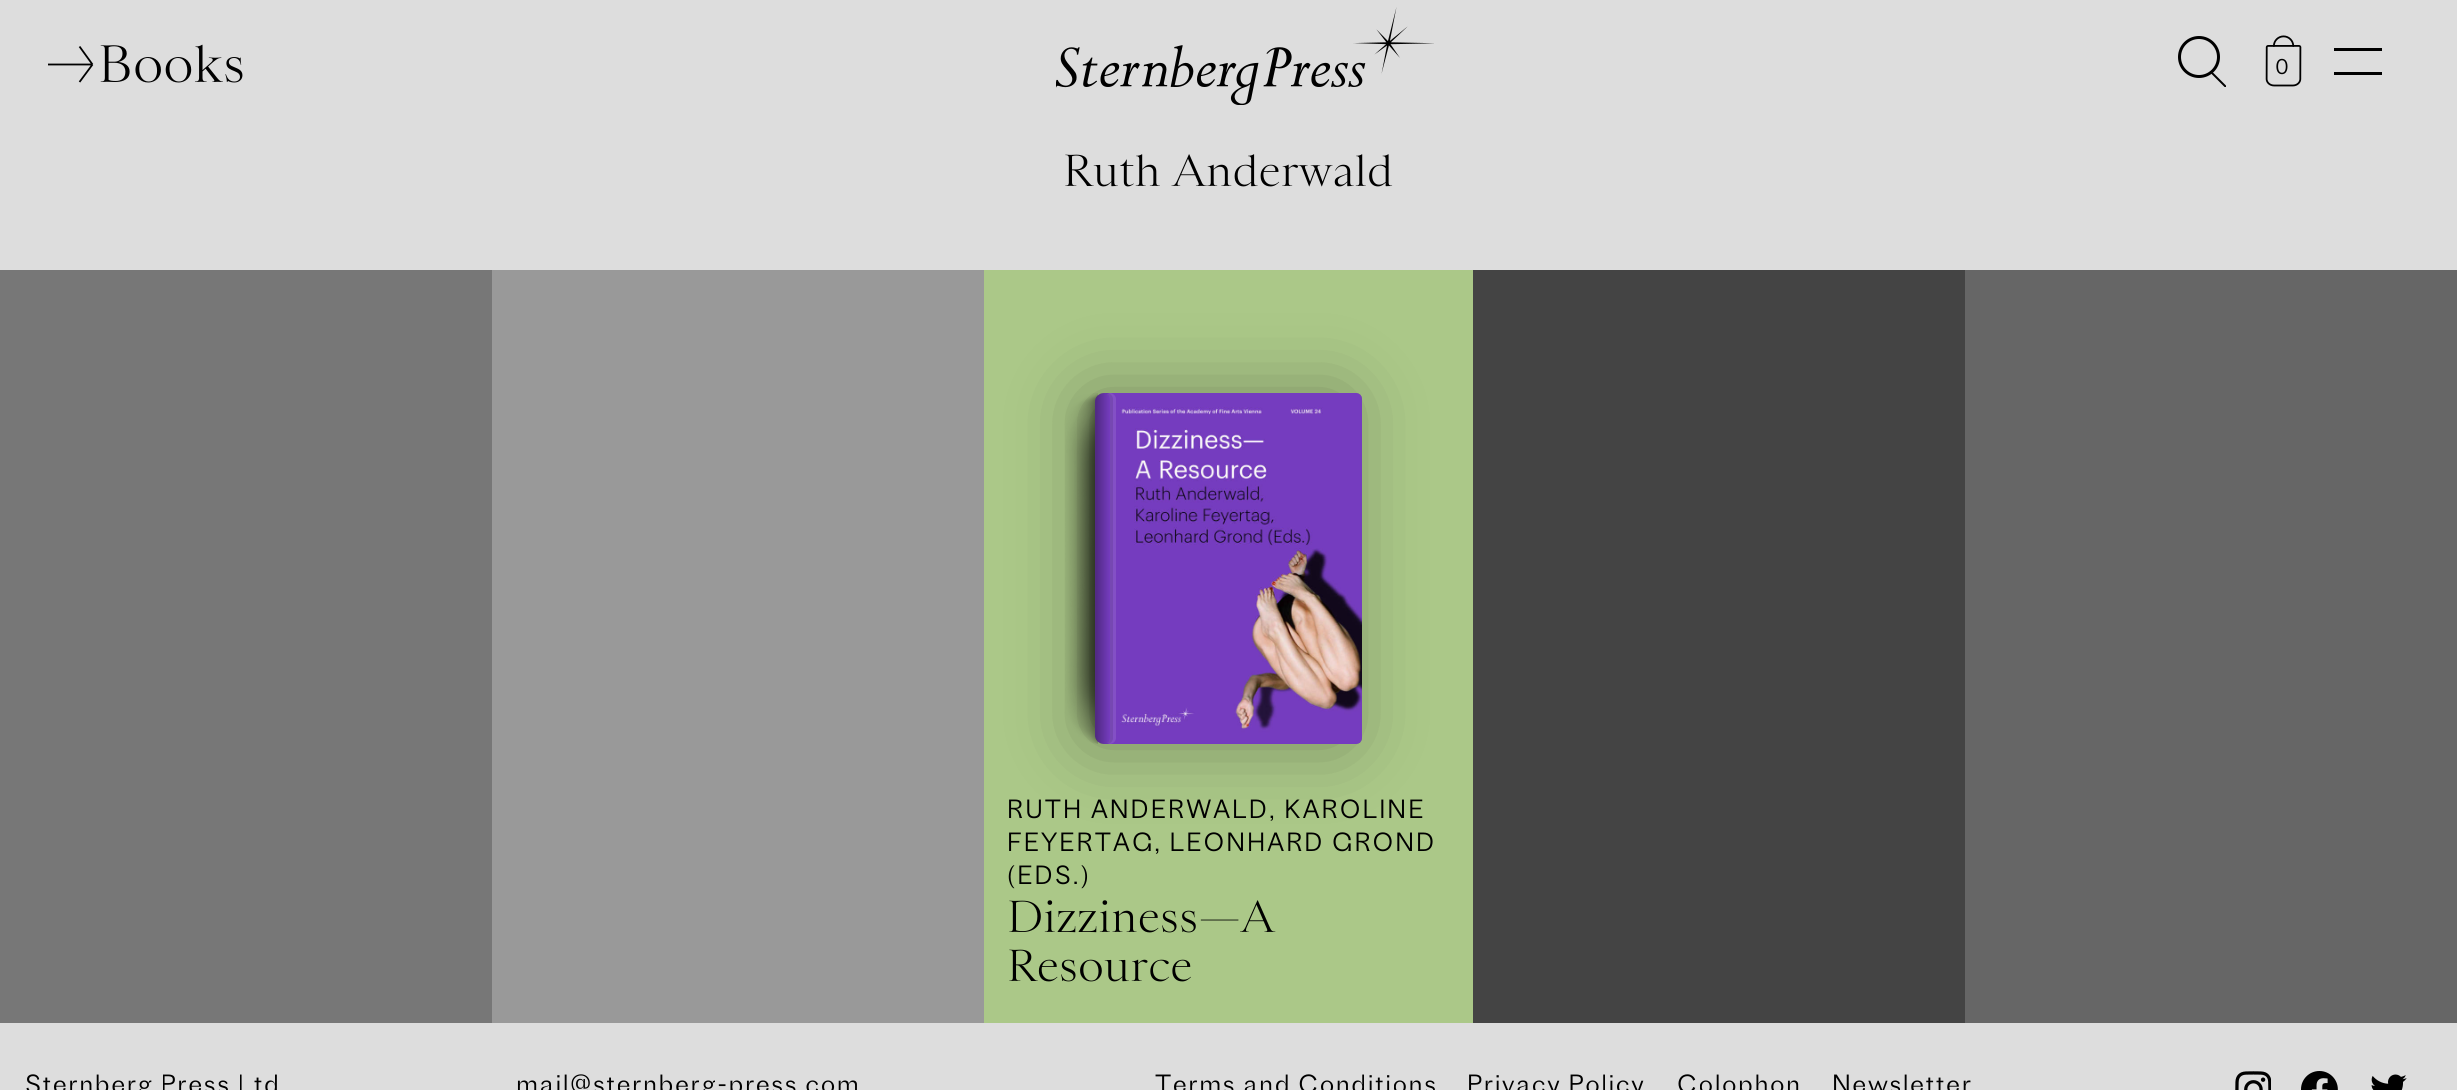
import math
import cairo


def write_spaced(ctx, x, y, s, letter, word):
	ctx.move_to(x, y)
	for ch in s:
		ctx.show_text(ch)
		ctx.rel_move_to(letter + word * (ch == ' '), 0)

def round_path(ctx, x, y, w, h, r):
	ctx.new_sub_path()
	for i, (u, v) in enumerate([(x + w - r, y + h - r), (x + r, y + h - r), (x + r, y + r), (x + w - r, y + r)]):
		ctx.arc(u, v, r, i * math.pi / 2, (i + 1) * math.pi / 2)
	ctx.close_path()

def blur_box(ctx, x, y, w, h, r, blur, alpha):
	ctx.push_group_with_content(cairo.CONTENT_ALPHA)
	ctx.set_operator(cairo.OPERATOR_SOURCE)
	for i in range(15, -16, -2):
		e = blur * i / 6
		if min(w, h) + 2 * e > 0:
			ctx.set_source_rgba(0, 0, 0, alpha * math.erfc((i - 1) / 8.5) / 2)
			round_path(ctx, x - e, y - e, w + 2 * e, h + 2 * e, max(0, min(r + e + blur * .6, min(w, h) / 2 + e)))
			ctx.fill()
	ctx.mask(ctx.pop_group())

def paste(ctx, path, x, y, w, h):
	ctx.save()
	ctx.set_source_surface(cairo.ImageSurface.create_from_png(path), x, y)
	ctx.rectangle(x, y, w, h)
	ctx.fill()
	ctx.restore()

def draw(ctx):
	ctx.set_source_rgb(0.867, 0.867, 0.867)
	ctx.paint()
	ctx.save()
	ctx.rectangle(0, 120, 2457, 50)
	ctx.clip()
	blur_box(ctx, -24, -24, 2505, 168, 0, 12.5, 1)
	ctx.restore()
	ctx.new_path()
	ctx.move_to(48, 64.5)
	ctx.line_to(92.5, 64.5)
	ctx.move_to(79.5, 46.5)
	ctx.line_to(92.5, 64.5)
	ctx.move_to(79.5, 82)
	ctx.line_to(92.5, 64.5)
	ctx.set_source_rgb(0, 0, 0)
	ctx.set_line_width(1.8)
	ctx.stroke()
	ctx.select_font_face('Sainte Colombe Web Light')
	ctx.set_font_size(49)
	ctx.move_to(98, 82)
	ctx.show_text('Books')
	paste(ctx, 'media/1.png', 1056, 7, 378, 98)
	ctx.save()
	ctx.rectangle(2175, 36, 51, 51)
	ctx.clip()
	ctx.new_path()
	ctx.move_to(2210.5, 71.5)
	ctx.line_to(2371.5, 232.5)
	ctx.set_line_width(2)
	ctx.stroke()
	ctx.restore()
	ctx.arc(2199, 57, 19.5, 0, 2 * math.pi)
	ctx.set_line_width(3)
	ctx.stroke()
	paste(ctx, 'media/2.png', 2265, 35, 37, 52)
	ctx.select_font_face('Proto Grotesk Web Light')
	ctx.set_font_size(20)
	write_spaced(ctx, 2275, 74, '0', 1.5, 0)
	ctx.rectangle(2334, 48, 48, 3)
	ctx.fill()
	ctx.rectangle(2334, 72, 48, 3)
	ctx.fill()
	ctx.select_font_face('Sainte Colombe Web Light')
	ctx.set_font_size(41.75)
	ctx.move_to(1063, 186)
	ctx.show_text('Ruth Anderwald')
	ctx.set_source_rgb(0.467, 0.467, 0.467)
	ctx.rectangle(0, 270, 492, 753)
	ctx.fill()
	ctx.set_source_rgb(0.6, 0.6, 0.6)
	ctx.rectangle(492, 270, 492, 753)
	ctx.fill()
	ctx.set_source_rgb(0.267, 0.267, 0.267)
	ctx.rectangle(1473, 270, 492, 753)
	ctx.fill()
	ctx.set_source_rgb(0.4, 0.4, 0.4)
	ctx.rectangle(1965, 270, 492, 753)
	ctx.fill()
	ctx.set_source_rgb(0.671, 0.784, 0.533)
	ctx.rectangle(984, 270, 489, 753)
	ctx.fill()
	ctx.set_source_rgb(0, 0, 0)
	blur_box(ctx, 1083, 393, 267, 351, 9, 37, 0.3)
	ctx.set_source_rgb(0.502, 0.502, 0.502)
	ctx.new_path()
	ctx.move_to(1104, 393)
	ctx.line_to(1356, 393)
	ctx.curve_to(1359.5, 393, 1362, 395.5, 1362, 399)
	ctx.line_to(1362, 738)
	ctx.curve_to(1362, 741.5, 1359.5, 744, 1356, 744)
	ctx.line_to(1104, 744)
	ctx.curve_to(1099, 744, 1095, 740, 1095, 735)
	ctx.line_to(1095, 402)
	ctx.curve_to(1095, 397, 1099, 393, 1104, 393)
	ctx.close_path()
	ctx.fill()
	paste(ctx, 'media/3.png', 1065, 393, 33, 351)
	paste(ctx, 'media/4.png', 1095, 393, 267, 351)
	ctx.set_source_rgb(0.514, 0.314, 0.773)
	ctx.new_path()
	ctx.move_to(1110, 393)
	ctx.line_to(1107, 394)
	ctx.curve_to(1109, 395, 1110, 397, 1110, 399)
	ctx.line_to(1110, 738)
	ctx.curve_to(1110, 740, 1109, 742, 1107, 743)
	ctx.line_to(1110, 744)
	ctx.curve_to(1113, 744, 1116, 741, 1116, 738)
	ctx.line_to(1116, 399)
	ctx.curve_to(1116, 396, 1113, 393, 1110, 393)
	ctx.close_path()
	ctx.fill()
	ctx.set_source_rgba(0, 0, 0, 0.1)
	ctx.new_path()
	ctx.move_to(1107, 393)
	ctx.line_to(1105, 393)
	ctx.curve_to(1108, 394, 1110, 396, 1110, 399)
	ctx.line_to(1110, 738)
	ctx.curve_to(1110, 741, 1108, 743, 1105, 744)
	ctx.curve_to(1109, 744, 1112, 743, 1113, 739)
	ctx.line_to(1113, 399)
	ctx.curve_to(1113, 396, 1110, 393, 1107, 393)
	ctx.close_path()
	ctx.fill()
	gradient = cairo.LinearGradient(1110, 569, 1095, 569)
	gradient.add_color_stop_rgba(0, 0, 0, 0, 0)
	gradient.add_color_stop_rgba(0.9, 0, 0, 0, 0.3)
	ctx.set_source(gradient)
	ctx.new_path()
	ctx.move_to(1104, 393)
	ctx.curve_to(1107.5, 393, 1110, 395.5, 1110, 399)
	ctx.line_to(1110, 738)
	ctx.curve_to(1110, 741.5, 1107.5, 744, 1104, 744)
	ctx.curve_to(1099, 744, 1095, 740, 1095, 735)
	ctx.line_to(1095, 402)
	ctx.curve_to(1095, 397, 1099, 393, 1104, 393)
	ctx.close_path()
	ctx.fill()
	ctx.select_font_face('Proto Grotesk Web Light')
	ctx.set_font_size(24.6)
	ctx.set_source_rgb(0, 0, 0)
	for x, y, s in [
		(1007, 818, 'RUTH ANDERWALD, KAROLINE'),
		(1007, 851, 'FEYERTAG, LEONHARD GROND'),
		(1007, 884, '(EDS.)'),
	]:
		write_spaced(ctx, x, y, s, 2, 0)
	ctx.select_font_face('Sainte Colombe Web Light')
	ctx.set_font_size(41.75)
	ctx.move_to(1007, 932)
	ctx.show_text('Dizziness—A')
	ctx.move_to(1007, 981)
	ctx.show_text('Resource')
	ctx.select_font_face('Proto Grotesk Web Light')
	ctx.set_font_size(24.6)
	for x, y, s in [
		(25, 1093, 'Sternberg Press Ltd'),
		(516, 1093, 'mail@sternberg-press.com'),
		(1155, 1093, 'Terms and Conditions'),
		(1467, 1093, 'Privacy Policy'),
		(1677, 1093, 'Colophon'),
		(1832, 1093, 'Newsletter'),
	]:
		write_spaced(ctx, x, y, s, 1.5, 0)
	paste(ctx, 'media/5.png', 2235, 1071, 36, 19)
	paste(ctx, 'media/6.png', 2301, 1071, 37, 19)
	paste(ctx, 'media/7.png', 2371, 1074, 36, 16)


surface = cairo.ImageSurface(cairo.FORMAT_RGB24, 2457, 1090)
ctx = cairo.Context(surface)
options = cairo.FontOptions()
options.set_hint_metrics(cairo.HINT_METRICS_OFF)
options.set_hint_style(cairo.HINT_STYLE_NONE)
ctx.set_font_options(options)
ctx.set_miter_limit(4)
draw(ctx)
surface.write_to_png('image.png')
